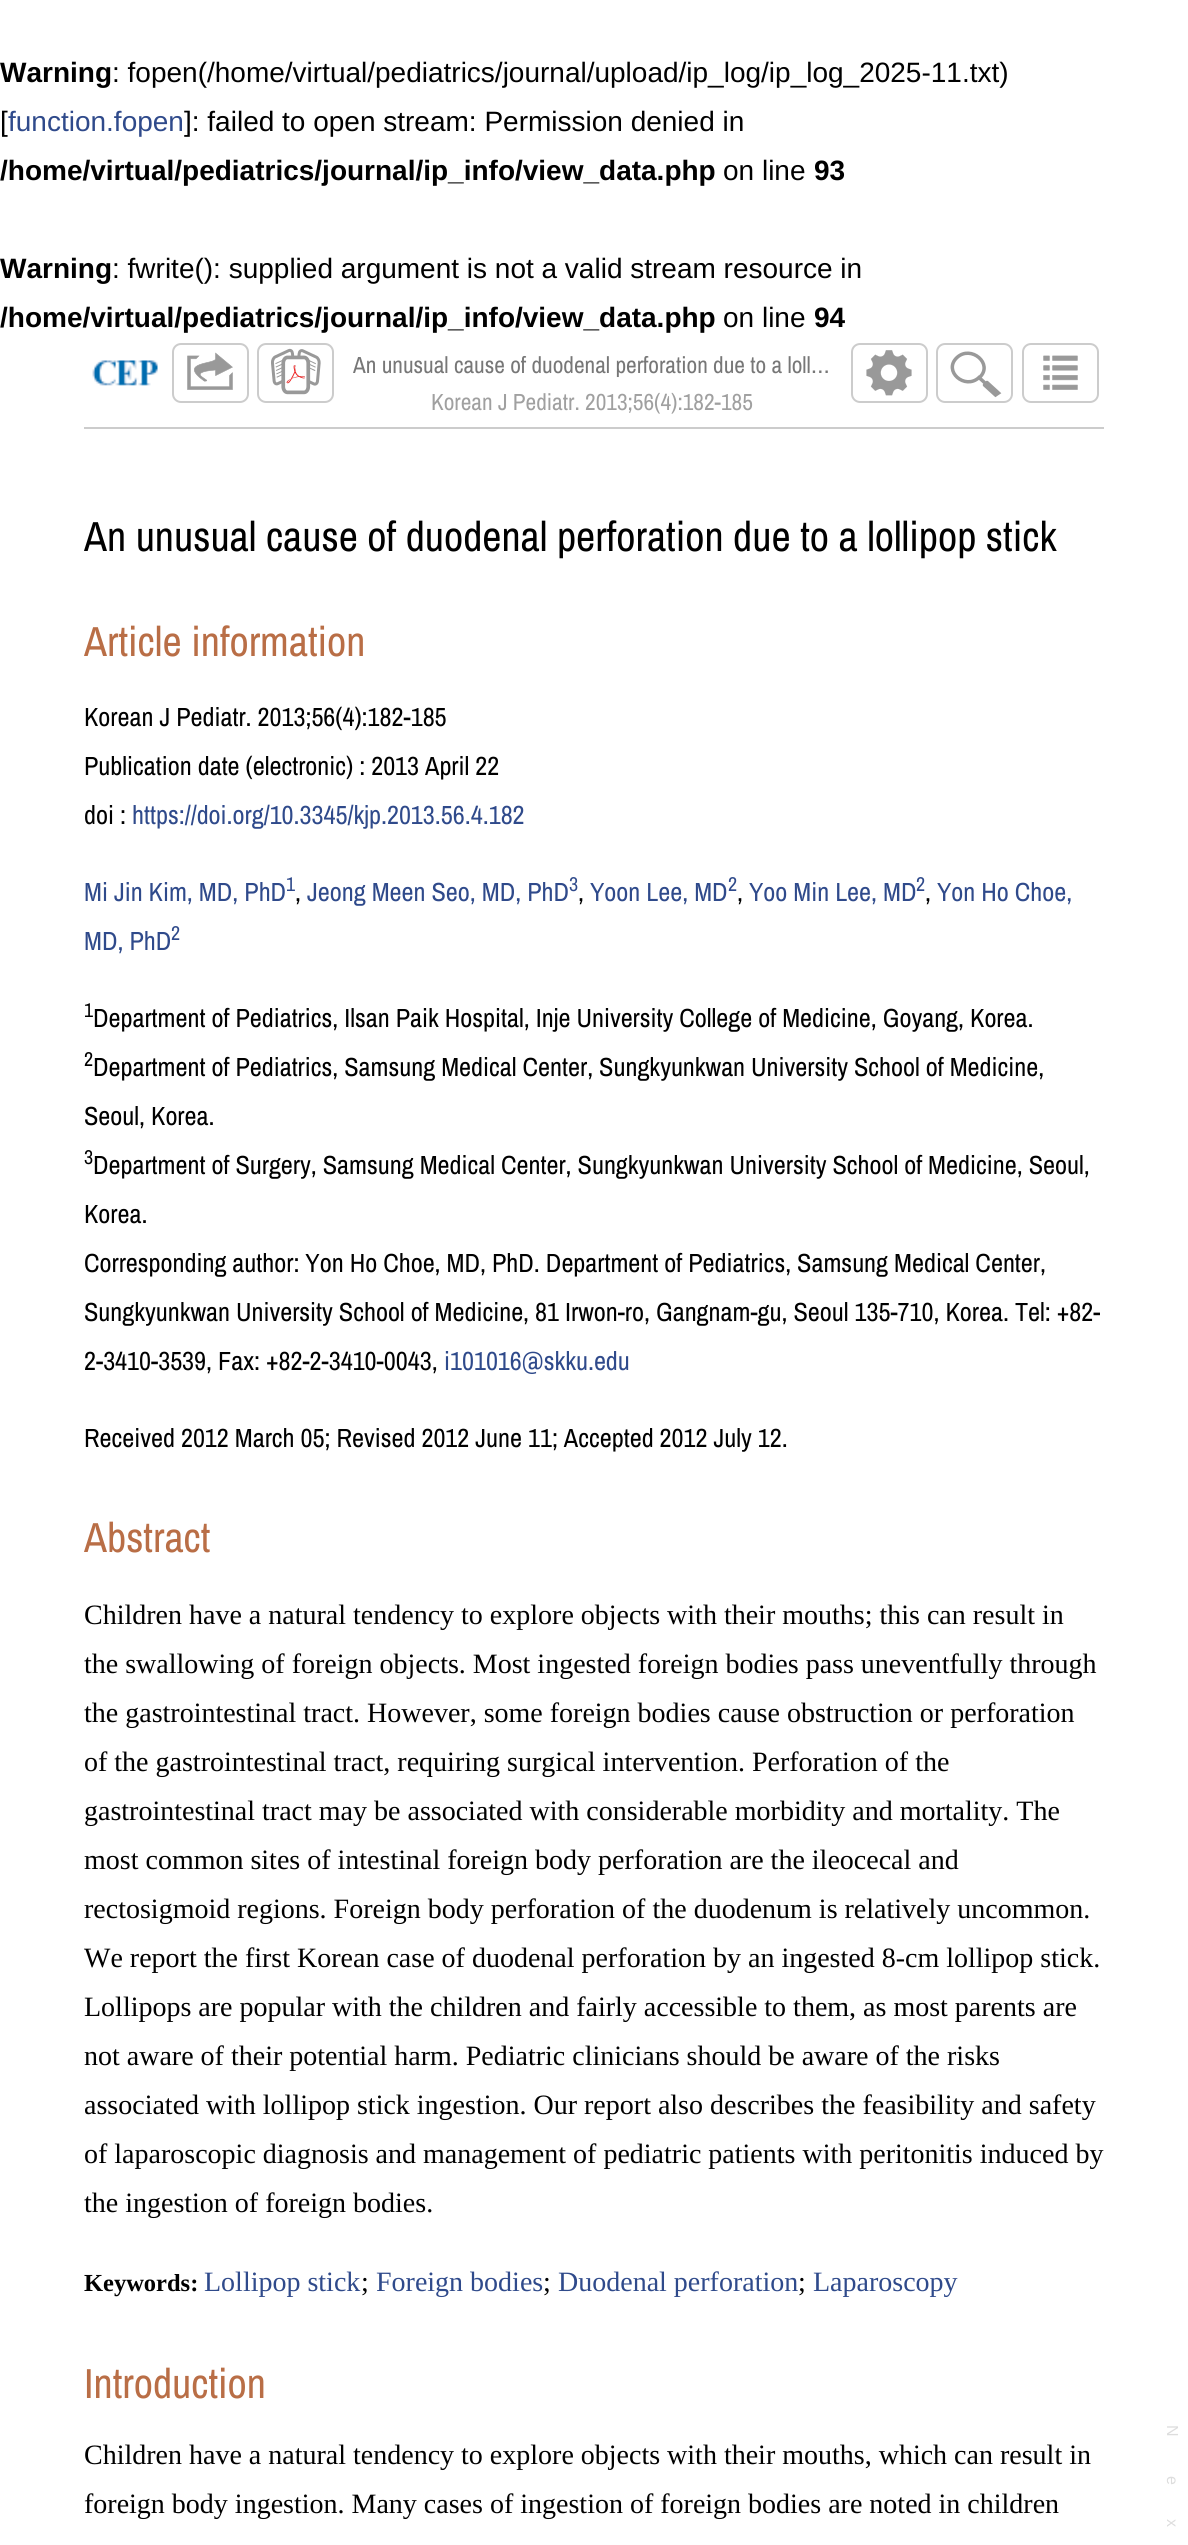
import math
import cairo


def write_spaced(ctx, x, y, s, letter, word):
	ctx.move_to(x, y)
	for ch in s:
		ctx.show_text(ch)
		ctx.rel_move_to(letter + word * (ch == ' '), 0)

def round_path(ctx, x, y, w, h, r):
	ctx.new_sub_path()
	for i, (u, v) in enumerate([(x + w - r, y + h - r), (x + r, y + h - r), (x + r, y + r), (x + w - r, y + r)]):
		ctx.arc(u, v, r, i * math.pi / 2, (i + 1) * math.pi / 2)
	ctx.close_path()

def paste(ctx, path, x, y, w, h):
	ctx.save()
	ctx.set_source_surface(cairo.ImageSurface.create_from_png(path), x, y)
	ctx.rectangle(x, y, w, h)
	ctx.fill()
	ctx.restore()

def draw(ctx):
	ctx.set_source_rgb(1, 1, 1)
	ctx.paint()
	ctx.select_font_face('Liberation Sans', cairo.FONT_SLANT_NORMAL, cairo.FONT_WEIGHT_BOLD)
	ctx.set_font_size(28)
	ctx.set_source_rgb(0, 0, 0)
	ctx.move_to(0, 82)
	ctx.show_text('Warning')
	ctx.select_font_face('Liberation Sans')
	ctx.move_to(112, 82)
	ctx.show_text(': fopen(/home/virtual/pediatrics/journal/upload/ip_log/ip_log_2025-11.txt)')
	ctx.move_to(0, 131)
	ctx.show_text('[')
	ctx.set_source_rgb(0.184, 0.29, 0.545)
	ctx.move_to(8, 131)
	ctx.show_text('function.fopen')
	ctx.set_source_rgb(0, 0, 0)
	ctx.move_to(184, 131)
	ctx.show_text(']: failed to open stream: Permission denied in')
	ctx.select_font_face('Liberation Sans', cairo.FONT_SLANT_NORMAL, cairo.FONT_WEIGHT_BOLD)
	ctx.move_to(0, 180)
	ctx.show_text('/home/virtual/pediatrics/journal/ip_info/view_data.php')
	ctx.select_font_face('Liberation Sans')
	ctx.move_to(723, 180)
	ctx.show_text('on line')
	ctx.select_font_face('Liberation Sans', cairo.FONT_SLANT_NORMAL, cairo.FONT_WEIGHT_BOLD)
	ctx.move_to(814, 180)
	ctx.show_text('93')
	ctx.move_to(0, 278)
	ctx.show_text('Warning')
	ctx.select_font_face('Liberation Sans')
	ctx.move_to(112, 278)
	ctx.show_text(': fwrite(): supplied argument is not a valid stream resource in')
	ctx.select_font_face('Liberation Sans', cairo.FONT_SLANT_NORMAL, cairo.FONT_WEIGHT_BOLD)
	ctx.move_to(0, 327)
	ctx.show_text('/home/virtual/pediatrics/journal/ip_info/view_data.php')
	ctx.select_font_face('Liberation Sans')
	ctx.move_to(723, 327)
	ctx.show_text('on line')
	ctx.select_font_face('Liberation Sans', cairo.FONT_SLANT_NORMAL, cairo.FONT_WEIGHT_BOLD)
	ctx.move_to(814, 327)
	ctx.show_text('94')
	ctx.set_source_rgb(0.8, 0.8, 0.8)
	ctx.rectangle(84, 427, 1020, 2)
	ctx.fill()
	paste(ctx, 'media/1.png', 92, 360, 66, 26)
	round_path(ctx, 173, 344, 75, 58, 8)
	ctx.stroke()
	paste(ctx, 'media/2.png', 187, 352, 46, 38)
	round_path(ctx, 258, 344, 75, 58, 8)
	ctx.stroke()
	paste(ctx, 'media/3.png', 271, 348, 50, 47)
	ctx.select_font_face('Archivo Narrow')
	ctx.set_font_size(23.3)
	ctx.set_source_rgb(0.467, 0.467, 0.467)
	ctx.move_to(353, 373)
	ctx.show_text('An unusual cause of duodenal perforation due to a loll…')
	ctx.set_source_rgb(0.627, 0.627, 0.627)
	ctx.move_to(431, 410)
	ctx.show_text('Korean J Pediatr. 2013;56(4):182-185')
	round_path(ctx, 852, 344, 75, 58, 8)
	ctx.set_source_rgb(0.8, 0.8, 0.8)
	ctx.stroke()
	paste(ctx, 'media/4.png', 866, 350, 46, 46)
	round_path(ctx, 937, 344, 75, 58, 8)
	ctx.stroke()
	ctx.new_path()
	ctx.move_to(979.5, 377.5)
	ctx.curve_to(994, 364, 971, 344.5, 957, 357.5)
	ctx.curve_to(942.5, 371, 965, 390.5, 979, 377.5)
	ctx.line_to(996.5, 393.5)
	ctx.move_to(987, 382.5)
	ctx.line_to(998.5, 393)
	ctx.line_to(995.5, 395)
	ctx.line_to(984.5, 385)
	ctx.set_source_rgb(0.6, 0.6, 0.6)
	ctx.set_line_width(3.5)
	ctx.set_line_cap(cairo.LINE_CAP_ROUND)
	ctx.stroke()
	round_path(ctx, 1023, 344, 75, 58, 8)
	ctx.set_source_rgb(0.8, 0.8, 0.8)
	ctx.set_line_width(2)
	ctx.set_line_cap(cairo.LINE_CAP_BUTT)
	ctx.stroke()
	paste(ctx, 'media/5.png', 1043, 355, 35, 35)
	ctx.select_font_face('Liberation Sans')
	ctx.set_font_size(16)
	ctx.set_source_rgb(0.867, 0.867, 0.867)
	ctx.save()
	ctx.translate(1167, 2425)
	ctx.rotate(90 * math.pi / 180)
	write_spaced(ctx, 0, 0, 'N', 27, 0)
	ctx.restore()
	ctx.save()
	ctx.translate(1167, 2476)
	ctx.rotate(90 * math.pi / 180)
	write_spaced(ctx, 0, 0, 'e', 21, 0)
	ctx.restore()
	ctx.save()
	ctx.translate(1167, 2519)
	ctx.rotate(90 * math.pi / 180)
	write_spaced(ctx, 0, 0, 'x', 19, 0)
	ctx.restore()
	ctx.select_font_face('Archivo Narrow')
	ctx.set_font_size(42)
	ctx.set_source_rgb(0, 0, 0)
	ctx.move_to(84, 551)
	ctx.show_text('An unusual cause of duodenal perforation due to a lollipop stick')
	ctx.set_source_rgb(0.725, 0.431, 0.275)
	ctx.move_to(84, 656)
	ctx.show_text('Article information')
	ctx.set_font_size(26.25)
	ctx.set_source_rgb(0, 0, 0)
	for x, y, s in [
		(84, 726, 'Korean J Pediatr. 2013;56(4):182-185'),
		(84, 775, 'Publication date (electronic) : 2013 April 22'),
		(84, 824, 'doi :'),
	]:
		ctx.move_to(x, y)
		ctx.show_text(s)
	ctx.set_source_rgb(0.184, 0.29, 0.545)
	ctx.move_to(132, 824)
	ctx.show_text('https://doi.org/10.3345/kjp.2013.56.4.182')
	ctx.move_to(84, 901)
	ctx.show_text('Mi Jin Kim, MD, PhD')
	ctx.set_font_size(20)
	ctx.move_to(286, 891)
	ctx.show_text('1')
	ctx.set_font_size(26.25)
	ctx.set_source_rgb(0, 0, 0)
	ctx.move_to(295, 901)
	ctx.show_text(',')
	ctx.set_source_rgb(0.184, 0.29, 0.545)
	ctx.move_to(307, 901)
	ctx.show_text('Jeong Meen Seo, MD, PhD')
	ctx.set_font_size(20)
	ctx.move_to(569, 891)
	ctx.show_text('3')
	ctx.set_font_size(26.25)
	ctx.set_source_rgb(0, 0, 0)
	ctx.move_to(578, 901)
	ctx.show_text(',')
	ctx.set_source_rgb(0.184, 0.29, 0.545)
	ctx.move_to(590, 901)
	ctx.show_text('Yoon Lee, MD')
	ctx.set_font_size(20)
	ctx.move_to(728, 891)
	ctx.show_text('2')
	ctx.set_font_size(26.25)
	ctx.set_source_rgb(0, 0, 0)
	ctx.move_to(737, 901)
	ctx.show_text(',')
	ctx.set_source_rgb(0.184, 0.29, 0.545)
	ctx.move_to(749, 901)
	ctx.show_text('Yoo Min Lee, MD')
	ctx.set_font_size(20)
	ctx.move_to(916, 891)
	ctx.show_text('2')
	ctx.set_font_size(26.25)
	ctx.set_source_rgb(0, 0, 0)
	ctx.move_to(925, 901)
	ctx.show_text(',')
	ctx.set_source_rgb(0.184, 0.29, 0.545)
	ctx.move_to(937, 901)
	ctx.show_text('Yon Ho Choe,')
	ctx.move_to(84, 950)
	ctx.show_text('MD, PhD')
	ctx.set_font_size(20)
	ctx.move_to(171, 940)
	ctx.show_text('2')
	ctx.set_source_rgb(0, 0, 0)
	ctx.move_to(84, 1017)
	ctx.show_text('1')
	ctx.set_font_size(26.25)
	ctx.move_to(93, 1027)
	ctx.show_text('Department of Pediatrics, Ilsan Paik Hospital, Inje University College of Medicine, Goyang, Korea.')
	ctx.set_font_size(20)
	ctx.move_to(84, 1066)
	ctx.show_text('2')
	ctx.set_font_size(26.25)
	ctx.move_to(93, 1076)
	ctx.show_text('Department of Pediatrics, Samsung Medical Center, Sungkyunkwan University School of Medicine,')
	ctx.move_to(84, 1125)
	ctx.show_text('Seoul, Korea.')
	ctx.set_font_size(20)
	ctx.move_to(84, 1164)
	ctx.show_text('3')
	ctx.set_font_size(26.25)
	for x, y, s in [
		(93, 1174, 'Department of Surgery, Samsung Medical Center, Sungkyunkwan University School of Medicine, Seoul,'),
		(84, 1223, 'Korea.'),
		(84, 1272, 'Corresponding author: Yon Ho Choe, MD, PhD. Department of Pediatrics, Samsung Medical Center,'),
		(84, 1321, 'Sungkyunkwan University School of Medicine, 81 Irwon-ro, Gangnam-gu, Seoul 135-710, Korea. Tel: +82-'),
		(84, 1370, '2-3410-3539, Fax: +82-2-3410-0043,'),
	]:
		ctx.move_to(x, y)
		ctx.show_text(s)
	ctx.set_source_rgb(0.184, 0.29, 0.545)
	ctx.move_to(444, 1370)
	ctx.show_text('i101016@skku.edu')
	ctx.set_source_rgb(0, 0, 0)
	ctx.move_to(84, 1447)
	ctx.show_text('Received 2012 March 05; Revised 2012 June 11; Accepted 2012 July 12.')
	ctx.set_font_size(42)
	ctx.set_source_rgb(0.725, 0.431, 0.275)
	ctx.move_to(84, 1552)
	ctx.show_text('Abstract')
	ctx.select_font_face('Liberation Serif')
	ctx.set_font_size(28)
	ctx.set_source_rgb(0, 0, 0)
	for x, y, s in [
		(84, 1624, 'Children have a natural tendency to explore objects with their mouths; this can result in'),
		(84, 1673, 'the swallowing of foreign objects. Most ingested foreign bodies pass uneventfully through'),
		(84, 1722, 'the gastrointestinal tract. However, some foreign bodies cause obstruction or perforation'),
		(84, 1771, 'of the gastrointestinal tract, requiring surgical intervention. Perforation of the'),
		(84, 1820, 'gastrointestinal tract may be associated with considerable morbidity and mortality. The'),
		(84, 1869, 'most common sites of intestinal foreign body perforation are the ileocecal and'),
		(84, 1918, 'rectosigmoid regions. Foreign body perforation of the duodenum is relatively uncommon.'),
		(84, 1967, 'We report the first Korean case of duodenal perforation by an ingested 8-cm lollipop stick.'),
		(84, 2016, 'Lollipops are popular with the children and fairly accessible to them, as most parents are'),
		(84, 2065, 'not aware of their potential harm. Pediatric clinicians should be aware of the risks'),
		(84, 2114, 'associated with lollipop stick ingestion. Our report also describes the feasibility and safety'),
		(84, 2163, 'of laparoscopic diagnosis and management of pediatric patients with peritonitis induced by'),
		(84, 2212, 'the ingestion of foreign bodies.'),
	]:
		ctx.move_to(x, y)
		ctx.show_text(s)
	ctx.select_font_face('Liberation Serif', cairo.FONT_SLANT_NORMAL, cairo.FONT_WEIGHT_BOLD)
	ctx.set_font_size(24.5)
	ctx.move_to(84, 2291)
	ctx.show_text('Keywords:')
	ctx.select_font_face('Liberation Serif')
	ctx.set_font_size(28)
	ctx.set_source_rgb(0.184, 0.29, 0.545)
	ctx.move_to(204, 2291)
	ctx.show_text('Lollipop stick')
	ctx.set_source_rgb(0, 0, 0)
	ctx.move_to(361, 2291)
	ctx.show_text(';')
	ctx.set_source_rgb(0.184, 0.29, 0.545)
	ctx.move_to(376, 2291)
	ctx.show_text('Foreign bodies')
	ctx.set_source_rgb(0, 0, 0)
	ctx.move_to(543, 2291)
	ctx.show_text(';')
	ctx.set_source_rgb(0.184, 0.29, 0.545)
	ctx.move_to(558, 2291)
	ctx.show_text('Duodenal perforation')
	ctx.set_source_rgb(0, 0, 0)
	ctx.move_to(798, 2291)
	ctx.show_text(';')
	ctx.set_source_rgb(0.184, 0.29, 0.545)
	ctx.move_to(813, 2291)
	ctx.show_text('Laparoscopy')
	ctx.select_font_face('Archivo Narrow')
	ctx.set_font_size(42)
	ctx.set_source_rgb(0.725, 0.431, 0.275)
	ctx.move_to(84, 2398)
	ctx.show_text('Introduction')
	ctx.select_font_face('Liberation Serif')
	ctx.set_font_size(28)
	ctx.set_source_rgb(0, 0, 0)
	ctx.move_to(84, 2464)
	ctx.show_text('Children have a natural tendency to explore objects with their mouths, which can result in')
	ctx.move_to(84, 2513)
	ctx.show_text('foreign body ingestion. Many cases of ingestion of foreign bodies are noted in children')


surface = cairo.ImageSurface(cairo.FORMAT_RGB24, 1188, 2545)
ctx = cairo.Context(surface)
options = cairo.FontOptions()
options.set_hint_metrics(cairo.HINT_METRICS_OFF)
options.set_hint_style(cairo.HINT_STYLE_NONE)
ctx.set_font_options(options)
ctx.set_miter_limit(4)
draw(ctx)
surface.write_to_png('image.png')
